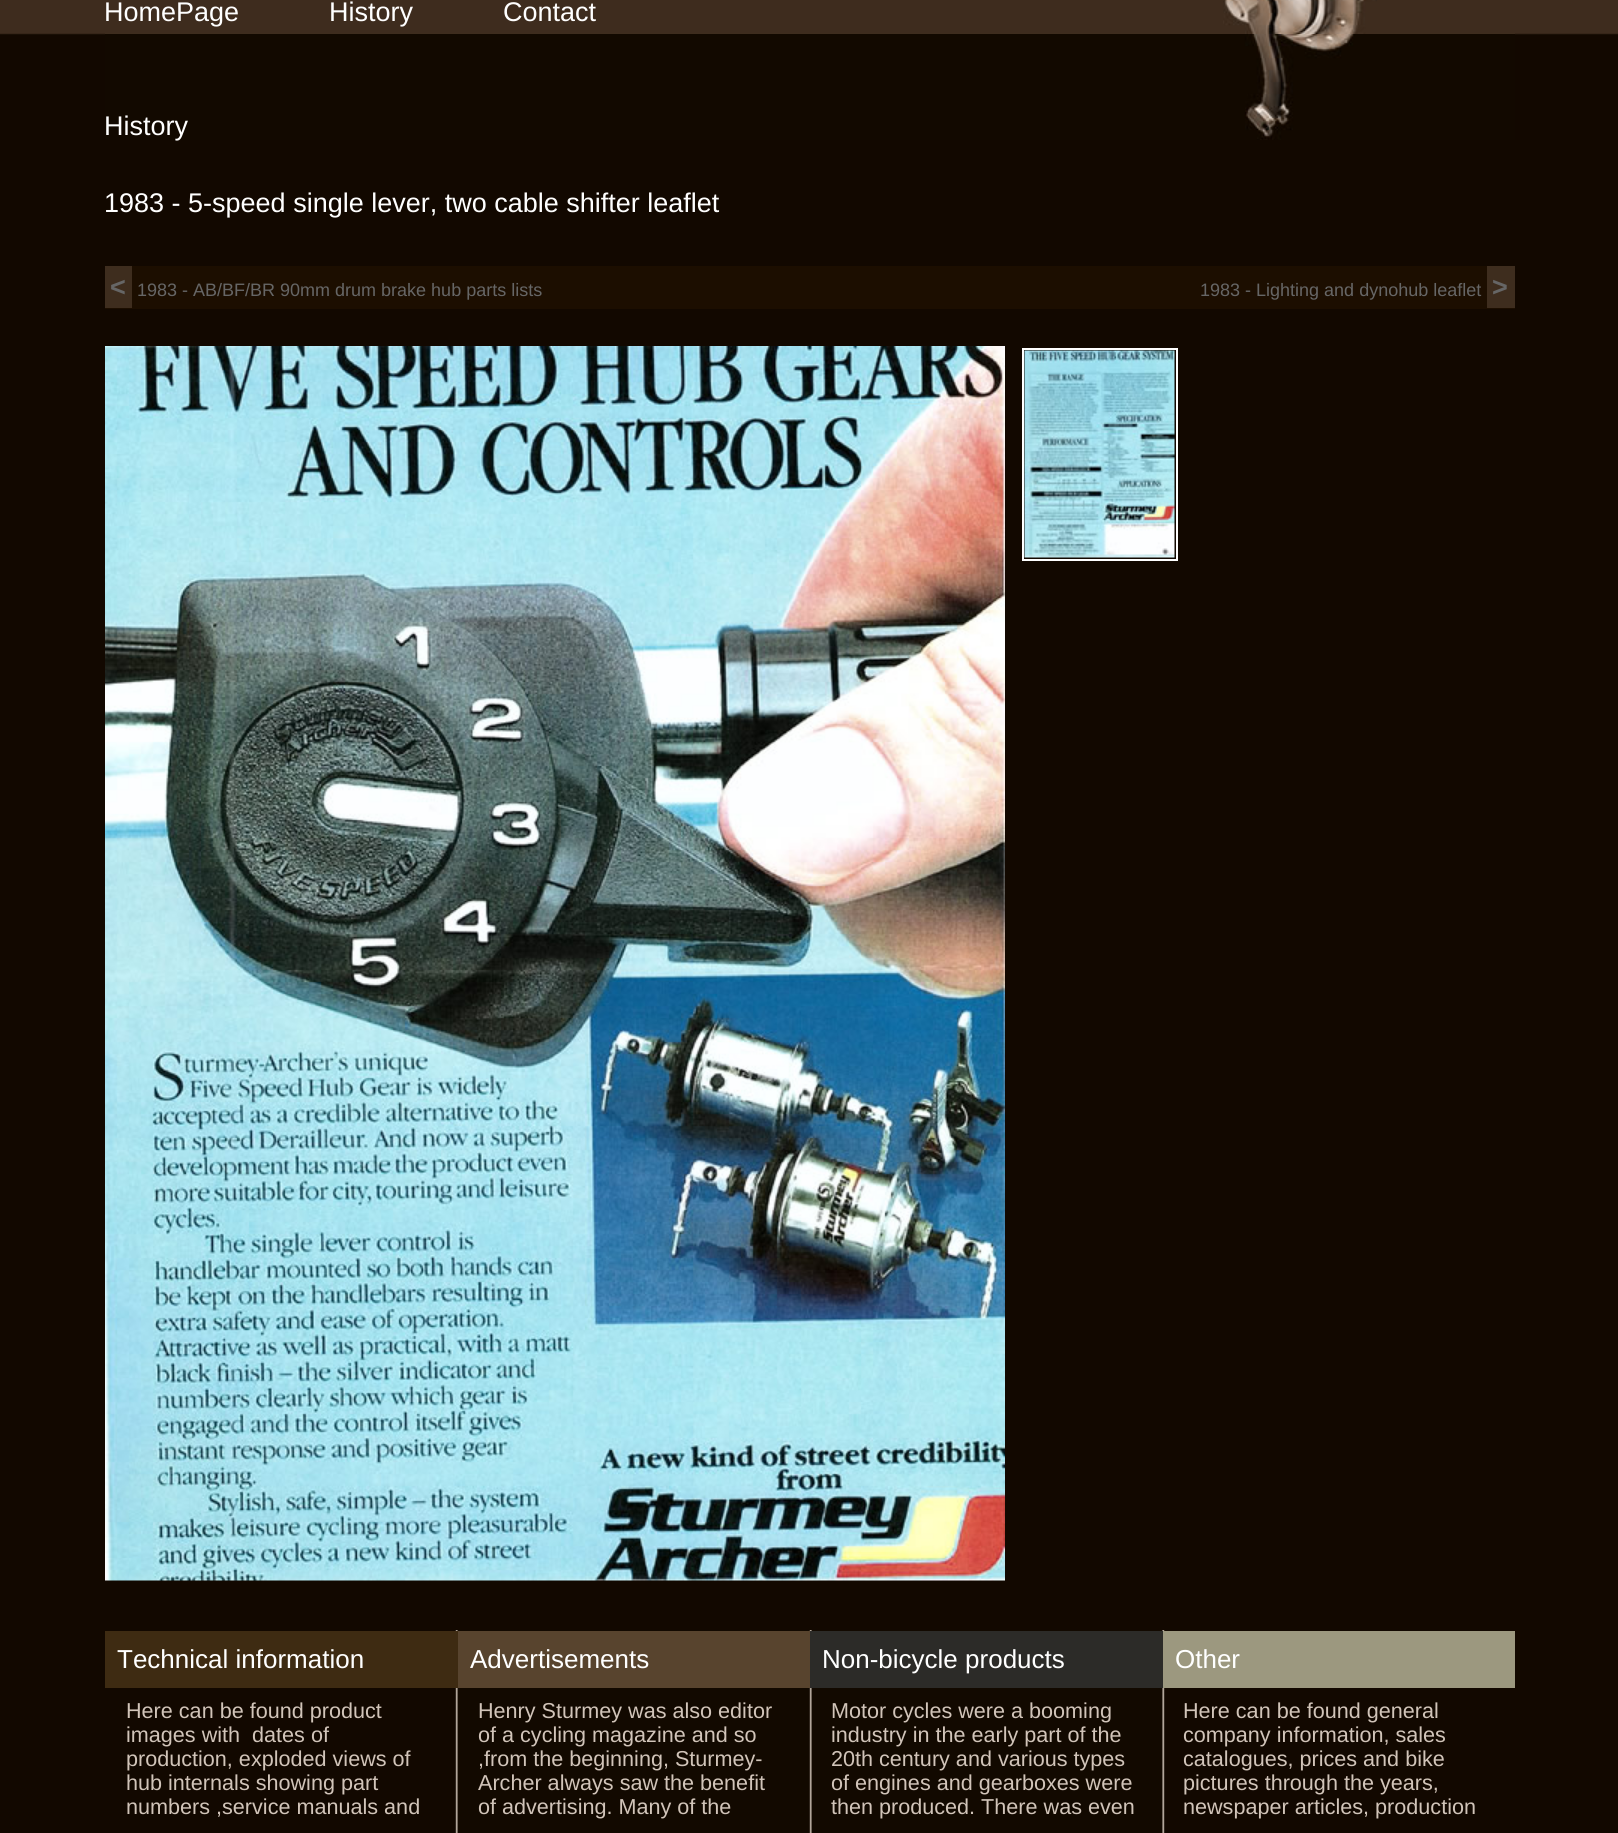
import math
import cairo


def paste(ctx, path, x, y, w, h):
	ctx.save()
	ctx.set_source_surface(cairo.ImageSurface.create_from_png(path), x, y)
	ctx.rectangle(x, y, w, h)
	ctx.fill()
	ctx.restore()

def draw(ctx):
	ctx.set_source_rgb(0.071, 0.035, 0)
	ctx.paint()
	paste(ctx, 'media/1.png', 0, 0, 1618, 35)
	ctx.set_source_rgb(0.243, 0.176, 0.118)
	ctx.rectangle(105, 33, 1410, 1)
	ctx.fill()
	paste(ctx, 'media/2.png', 1223, 0, 154, 34)
	ctx.select_font_face('Liberation Sans')
	ctx.set_font_size(27)
	ctx.set_source_rgb(1, 1, 1)
	for x, y, s in [
		(104, 21, 'HomePage'),
		(329, 21, 'History'),
		(503, 21, 'Contact'),
	]:
		ctx.move_to(x, y)
		ctx.show_text(s)
	paste(ctx, 'media/3.png', 105, 34, 1410, 106)
	ctx.move_to(104, 135)
	ctx.show_text('History')
	ctx.move_to(104, 212)
	ctx.show_text('1983 - 5-speed single lever, two cable shifter leaflet')
	ctx.set_source_rgb(0.11, 0.055, 0)
	ctx.rectangle(105, 266, 1410, 43)
	ctx.fill()
	ctx.set_source_rgb(0.243, 0.176, 0.118)
	ctx.rectangle(105, 266, 27, 42)
	ctx.fill()
	ctx.select_font_face('Liberation Sans', cairo.FONT_SLANT_NORMAL, cairo.FONT_WEIGHT_BOLD)
	ctx.set_source_rgb(0.4, 0.4, 0.4)
	ctx.move_to(110, 296)
	ctx.show_text('<')
	ctx.select_font_face('Liberation Sans')
	ctx.set_font_size(18)
	ctx.move_to(137, 296)
	ctx.show_text('1983 - AB/BF/BR 90mm drum brake hub parts lists')
	ctx.move_to(1200, 296)
	ctx.show_text('1983 - Lighting and dynohub leaflet')
	ctx.set_source_rgb(0.243, 0.176, 0.118)
	ctx.rectangle(1487, 266, 28, 42)
	ctx.fill()
	ctx.select_font_face('Liberation Sans', cairo.FONT_SLANT_NORMAL, cairo.FONT_WEIGHT_BOLD)
	ctx.set_font_size(27)
	ctx.set_source_rgb(0.4, 0.4, 0.4)
	ctx.move_to(1492, 296)
	ctx.show_text('>')
	paste(ctx, 'media/4.png', 105, 346, 900, 1235)
	ctx.rectangle(1023, 349, 154, 211)
	ctx.set_source_rgb(1, 1, 1)
	ctx.stroke()
	paste(ctx, 'media/5.png', 1024, 350, 151, 208)
	paste(ctx, 'media/6.png', 455, 1630, 710, 203)
	ctx.set_source_rgb(0.243, 0.169, 0.071)
	ctx.rectangle(105, 1631, 353, 57)
	ctx.fill()
	ctx.select_font_face('Liberation Sans')
	ctx.set_font_size(26)
	ctx.set_source_rgb(1, 1, 1)
	ctx.move_to(117, 1668)
	ctx.show_text('Technical information')
	ctx.set_font_size(21.6)
	ctx.set_source_rgb(0.82, 0.769, 0.725)
	for x, y, s in [
		(126, 1718, 'Here can be found product'),
		(126, 1742, 'images with  dates of'),
		(126, 1766, 'production, exploded views of'),
		(126, 1790, 'hub internals showing part'),
		(126, 1814, 'numbers ,service manuals and'),
	]:
		ctx.move_to(x, y)
		ctx.show_text(s)
	ctx.set_source_rgb(0.345, 0.267, 0.18)
	ctx.rectangle(458, 1631, 352, 57)
	ctx.fill()
	ctx.set_font_size(26)
	ctx.set_source_rgb(1, 1, 1)
	ctx.move_to(470, 1668)
	ctx.show_text('Advertisements')
	ctx.set_font_size(21.6)
	ctx.set_source_rgb(0.82, 0.769, 0.725)
	for x, y, s in [
		(478, 1718, 'Henry Sturmey was also editor'),
		(478, 1742, 'of a cycling magazine and so'),
		(478, 1766, ',from the beginning, Sturmey-'),
		(478, 1790, 'Archer always saw the benefit'),
		(478, 1814, 'of advertising. Many of the'),
	]:
		ctx.move_to(x, y)
		ctx.show_text(s)
	ctx.set_source_rgb(0.173, 0.169, 0.157)
	ctx.rectangle(810, 1631, 353, 57)
	ctx.fill()
	ctx.set_font_size(26)
	ctx.set_source_rgb(1, 1, 1)
	ctx.move_to(822, 1668)
	ctx.show_text('Non-bicycle products')
	ctx.set_font_size(21.6)
	ctx.set_source_rgb(0.82, 0.769, 0.725)
	for x, y, s in [
		(831, 1718, 'Motor cycles were a booming'),
		(831, 1742, 'industry in the early part of the'),
		(831, 1766, '20th century and various types'),
		(831, 1790, 'of engines and gearboxes were'),
		(831, 1814, 'then produced. There was even'),
	]:
		ctx.move_to(x, y)
		ctx.show_text(s)
	ctx.set_source_rgb(0.612, 0.596, 0.498)
	ctx.rectangle(1163, 1631, 352, 57)
	ctx.fill()
	ctx.set_font_size(26)
	ctx.set_source_rgb(1, 1, 1)
	ctx.move_to(1175, 1668)
	ctx.show_text('Other')
	ctx.set_font_size(21.6)
	ctx.set_source_rgb(0.82, 0.769, 0.725)
	for x, y, s in [
		(1183, 1718, 'Here can be found general'),
		(1183, 1742, 'company information, sales'),
		(1183, 1766, 'catalogues, prices and bike'),
		(1183, 1790, 'pictures through the years,'),
		(1183, 1814, 'newspaper articles, production'),
	]:
		ctx.move_to(x, y)
		ctx.show_text(s)


surface = cairo.ImageSurface(cairo.FORMAT_RGB24, 1618, 1833)
ctx = cairo.Context(surface)
options = cairo.FontOptions()
options.set_hint_metrics(cairo.HINT_METRICS_OFF)
options.set_hint_style(cairo.HINT_STYLE_NONE)
ctx.set_font_options(options)
ctx.set_miter_limit(4)
draw(ctx)
surface.write_to_png('image.png')
